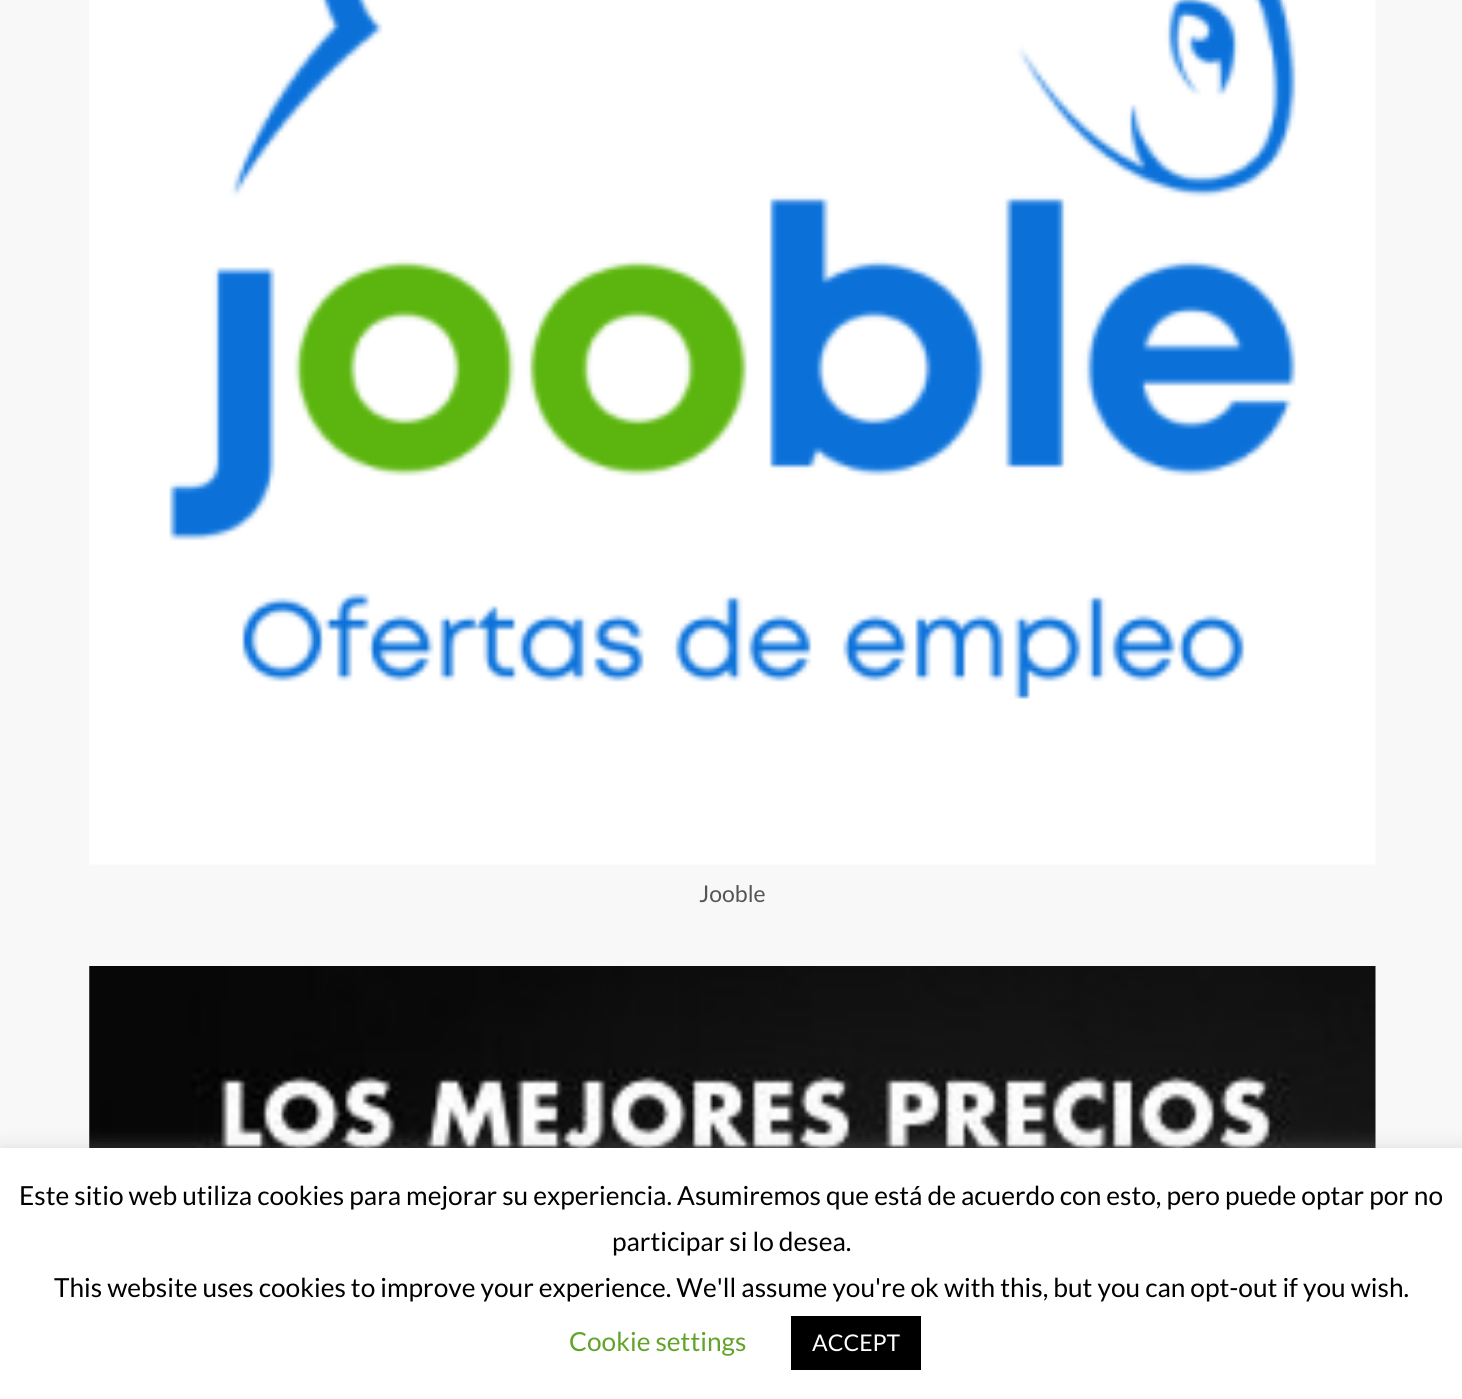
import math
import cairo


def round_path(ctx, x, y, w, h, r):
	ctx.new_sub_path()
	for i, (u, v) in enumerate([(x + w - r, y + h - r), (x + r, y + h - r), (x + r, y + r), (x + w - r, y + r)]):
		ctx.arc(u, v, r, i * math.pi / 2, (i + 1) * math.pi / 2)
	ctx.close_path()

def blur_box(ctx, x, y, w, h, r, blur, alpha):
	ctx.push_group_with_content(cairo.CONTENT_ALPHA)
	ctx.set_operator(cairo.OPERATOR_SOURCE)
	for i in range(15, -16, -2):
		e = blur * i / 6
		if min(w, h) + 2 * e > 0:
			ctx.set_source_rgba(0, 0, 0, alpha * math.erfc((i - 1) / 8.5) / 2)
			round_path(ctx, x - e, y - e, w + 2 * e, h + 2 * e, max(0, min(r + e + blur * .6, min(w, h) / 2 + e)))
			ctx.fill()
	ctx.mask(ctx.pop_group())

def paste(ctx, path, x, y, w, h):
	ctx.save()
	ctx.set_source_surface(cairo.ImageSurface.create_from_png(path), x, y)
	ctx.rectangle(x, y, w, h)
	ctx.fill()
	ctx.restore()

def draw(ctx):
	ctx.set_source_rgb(0.969, 0.969, 0.969)
	ctx.paint()
	paste(ctx, 'media/1.png', 89, 0, 1287, 865)
	ctx.select_font_face('Lato')
	ctx.set_font_size(23)
	ctx.set_source_rgb(0.333, 0.333, 0.333)
	ctx.move_to(699, 902)
	ctx.show_text('Jooble')
	paste(ctx, 'media/2.png', 89, 966, 1287, 182)
	ctx.set_source_rgb(0.675, 0.671, 0.671)
	blur_box(ctx, 0, 1146, 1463, 252, 0, 9, 0.3)
	ctx.set_source_rgb(1, 1, 1)
	ctx.rectangle(0, 1148, 1462, 251)
	ctx.fill()
	ctx.set_font_size(26.25)
	ctx.set_source_rgb(0, 0, 0)
	for x, y, s in [
		(19, 1205, 'Este sitio web utiliza cookies para mejorar su experiencia. Asumiremos que está de acuerdo con esto, pero puede optar por no'),
		(612, 1251, 'participar si lo desea.'),
		(54, 1297, 'This website uses cookies to improve your experience. We\'ll assume you\'re ok with this, but you can opt-out if you wish.'),
	]:
		ctx.move_to(x, y)
		ctx.show_text(s)
	ctx.set_source_rgb(0.384, 0.639, 0.161)
	ctx.move_to(569, 1351)
	ctx.show_text('Cookie settings')
	ctx.set_source_rgb(0, 0, 0)
	ctx.rectangle(791, 1316, 130, 54)
	ctx.fill()
	ctx.set_font_size(23)
	ctx.set_source_rgb(1, 1, 1)
	ctx.move_to(812, 1351)
	ctx.show_text('ACCEPT')


surface = cairo.ImageSurface(cairo.FORMAT_RGB24, 1462, 1399)
ctx = cairo.Context(surface)
options = cairo.FontOptions()
options.set_hint_metrics(cairo.HINT_METRICS_OFF)
options.set_hint_style(cairo.HINT_STYLE_NONE)
ctx.set_font_options(options)
ctx.set_miter_limit(4)
draw(ctx)
surface.write_to_png('image.png')
